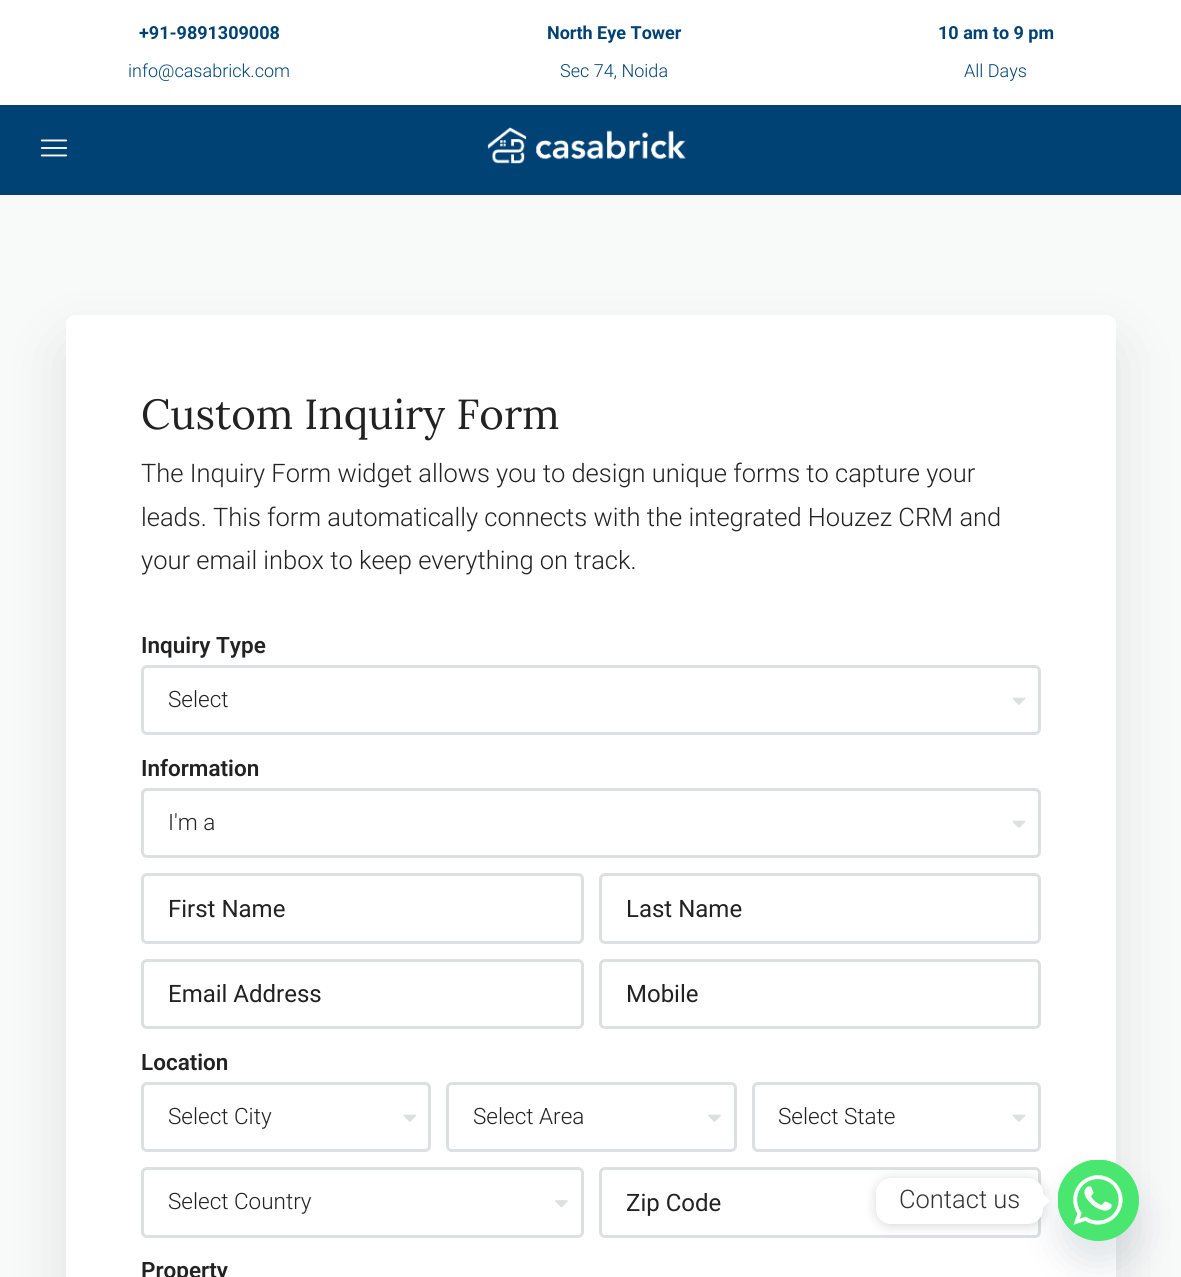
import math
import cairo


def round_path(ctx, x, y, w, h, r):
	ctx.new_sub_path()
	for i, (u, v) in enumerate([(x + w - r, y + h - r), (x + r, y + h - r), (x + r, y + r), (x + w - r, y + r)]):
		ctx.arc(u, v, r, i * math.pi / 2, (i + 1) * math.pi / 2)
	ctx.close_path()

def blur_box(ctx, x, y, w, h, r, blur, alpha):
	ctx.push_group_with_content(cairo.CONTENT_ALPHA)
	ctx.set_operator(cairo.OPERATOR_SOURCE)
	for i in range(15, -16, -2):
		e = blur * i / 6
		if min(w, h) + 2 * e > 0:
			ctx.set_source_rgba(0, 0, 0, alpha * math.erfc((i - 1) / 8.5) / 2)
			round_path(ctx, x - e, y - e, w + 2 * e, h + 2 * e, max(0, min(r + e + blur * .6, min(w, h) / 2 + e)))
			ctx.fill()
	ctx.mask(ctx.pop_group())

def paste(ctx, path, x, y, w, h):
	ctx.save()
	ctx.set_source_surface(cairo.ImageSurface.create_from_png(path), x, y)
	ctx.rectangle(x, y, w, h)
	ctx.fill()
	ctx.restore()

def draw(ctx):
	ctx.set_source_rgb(0.969, 0.973, 0.976)
	ctx.paint()
	ctx.set_source_rgb(1, 1, 1)
	ctx.rectangle(0, 0, 1181, 105)
	ctx.fill()
	ctx.select_font_face('Roboto', cairo.FONT_SLANT_NORMAL, cairo.FONT_WEIGHT_BOLD)
	ctx.set_font_size(18)
	ctx.set_source_rgb(0, 0.259, 0.455)
	ctx.move_to(139, 39)
	ctx.show_text('+91-9891309008')
	ctx.select_font_face('Roboto Light')
	ctx.move_to(128, 77)
	ctx.show_text('info@casabrick.com')
	ctx.select_font_face('Roboto', cairo.FONT_SLANT_NORMAL, cairo.FONT_WEIGHT_BOLD)
	ctx.move_to(547, 39)
	ctx.show_text('North Eye Tower')
	ctx.select_font_face('Roboto Light')
	ctx.move_to(560, 77)
	ctx.show_text('Sec 74, Noida')
	ctx.select_font_face('Roboto', cairo.FONT_SLANT_NORMAL, cairo.FONT_WEIGHT_BOLD)
	ctx.move_to(938, 39)
	ctx.show_text('10 am to 9 pm')
	ctx.select_font_face('Roboto Light')
	ctx.move_to(964, 77)
	ctx.show_text('All Days')
	ctx.rectangle(0, 105, 1181, 90)
	ctx.fill()
	paste(ctx, 'media/1.png', 40, 139, 28, 18)
	paste(ctx, 'media/2.png', 487, 127, 199, 37)
	ctx.set_source_rgb(0, 0, 0)
	blur_box(ctx, 66, 345, 1050, 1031, 9, 30, 0.1)
	ctx.set_source_rgb(1, 1, 1)
	round_path(ctx, 66, 315, 1050, 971, 9)
	ctx.fill()
	ctx.select_font_face('Lora')
	ctx.set_font_size(42)
	ctx.set_source_rgb(0.133, 0.133, 0.133)
	ctx.move_to(141, 429)
	ctx.show_text('Custom Inquiry Form')
	ctx.select_font_face('Roboto Light')
	ctx.set_font_size(25.5)
	for x, y, s in [
		(141, 482, 'The Inquiry Form widget allows you to design unique forms to capture your'),
		(141, 526, 'leads. This form automatically connects with the integrated Houzez CRM and'),
		(141, 569, 'your email inbox to keep everything on track.'),
	]:
		ctx.move_to(x, y)
		ctx.show_text(s)
	ctx.select_font_face('Roboto SemiBold')
	ctx.set_font_size(22.5)
	ctx.move_to(141, 653)
	ctx.show_text('Inquiry Type')
	round_path(ctx, 142.5, 666.5, 897, 67, 4.5)
	ctx.set_source_rgb(0.863, 0.878, 0.878)
	ctx.set_line_width(3)
	ctx.stroke()
	ctx.select_font_face('Roboto Light')
	ctx.set_source_rgb(0.133, 0.133, 0.133)
	ctx.move_to(168, 707)
	ctx.show_text('Select')
	paste(ctx, 'media/3.png', 1012, 697, 14, 8)
	ctx.select_font_face('Roboto SemiBold')
	ctx.move_to(141, 776)
	ctx.show_text('Information')
	round_path(ctx, 142.5, 789.5, 897, 67, 4.5)
	ctx.set_source_rgb(0.863, 0.878, 0.878)
	ctx.stroke()
	ctx.select_font_face('Roboto Light')
	ctx.set_source_rgb(0.133, 0.133, 0.133)
	ctx.move_to(168, 830)
	ctx.show_text('I\'m a')
	paste(ctx, 'media/3.png', 1012, 820, 14, 8)
	round_path(ctx, 142.5, 874.5, 440, 68, 4.5)
	ctx.set_source_rgb(0.863, 0.878, 0.878)
	ctx.stroke()
	ctx.select_font_face('Roboto')
	ctx.set_font_size(24)
	ctx.set_source_rgb(0.133, 0.133, 0.133)
	ctx.move_to(168, 917)
	ctx.show_text('First Name')
	round_path(ctx, 600.5, 874.5, 439, 68, 4.5)
	ctx.set_source_rgb(0.863, 0.878, 0.878)
	ctx.stroke()
	ctx.set_source_rgb(0.133, 0.133, 0.133)
	ctx.move_to(626, 917)
	ctx.show_text('Last Name')
	round_path(ctx, 142.5, 960.5, 440, 67, 4.5)
	ctx.set_source_rgb(0.863, 0.878, 0.878)
	ctx.stroke()
	ctx.set_source_rgb(0.133, 0.133, 0.133)
	ctx.move_to(168, 1002)
	ctx.show_text('Email Address')
	round_path(ctx, 600.5, 960.5, 439, 67, 4.5)
	ctx.set_source_rgb(0.863, 0.878, 0.878)
	ctx.stroke()
	ctx.set_source_rgb(0.133, 0.133, 0.133)
	ctx.move_to(626, 1002)
	ctx.show_text('Mobile')
	ctx.select_font_face('Roboto SemiBold')
	ctx.set_font_size(22.5)
	ctx.move_to(141, 1070)
	ctx.show_text('Location')
	round_path(ctx, 142.5, 1083.5, 287, 67, 4.5)
	ctx.set_source_rgb(0.863, 0.878, 0.878)
	ctx.stroke()
	ctx.select_font_face('Roboto Light')
	ctx.set_source_rgb(0.133, 0.133, 0.133)
	ctx.move_to(168, 1124)
	ctx.show_text('Select City')
	paste(ctx, 'media/3.png', 403, 1114, 14, 8)
	round_path(ctx, 447.5, 1083.5, 288, 67, 4.5)
	ctx.set_source_rgb(0.863, 0.878, 0.878)
	ctx.stroke()
	ctx.set_source_rgb(0.133, 0.133, 0.133)
	ctx.move_to(473, 1124)
	ctx.show_text('Select Area')
	paste(ctx, 'media/4.png', 708, 1114, 13, 8)
	round_path(ctx, 753.5, 1083.5, 286, 67, 4.5)
	ctx.set_source_rgb(0.863, 0.878, 0.878)
	ctx.stroke()
	ctx.set_source_rgb(0.133, 0.133, 0.133)
	ctx.move_to(778, 1124)
	ctx.show_text('Select State')
	paste(ctx, 'media/3.png', 1012, 1114, 14, 8)
	round_path(ctx, 142.5, 1168.5, 440, 68, 4.5)
	ctx.set_source_rgb(0.863, 0.878, 0.878)
	ctx.stroke()
	ctx.set_source_rgb(0.133, 0.133, 0.133)
	ctx.move_to(168, 1209)
	ctx.show_text('Select Country')
	paste(ctx, 'media/5.png', 555, 1200, 13, 8)
	round_path(ctx, 600.5, 1168.5, 439, 68, 4.5)
	ctx.set_source_rgb(0.863, 0.878, 0.878)
	ctx.stroke()
	ctx.select_font_face('Roboto')
	ctx.set_font_size(24)
	ctx.set_source_rgb(0.133, 0.133, 0.133)
	ctx.move_to(626, 1211)
	ctx.show_text('Zip Code')
	ctx.select_font_face('Roboto SemiBold')
	ctx.set_font_size(22.5)
	ctx.move_to(141, 1278)
	ctx.show_text('Property')
	ctx.set_source_rgb(0.286, 0.408, 0.494)
	blur_box(ctx, 1058, 1184, 81, 81, 40.5, 18, 0.16)
	ctx.set_source_rgb(0.286, 0.902, 0.439)
	ctx.arc(1098.5, 1200.5, 40.5, 0, 2 * math.pi)
	ctx.fill()
	paste(ctx, 'media/6.png', 1058, 1160, 81, 81)
	ctx.set_source_rgb(0, 0, 0)
	blur_box(ctx, 876, 1179, 167, 47, 15, 6, 0.15)
	ctx.set_source_rgb(1, 1, 1)
	round_path(ctx, 876, 1178, 167, 46, 15)
	ctx.fill()
	ctx.select_font_face('Roboto Light')
	ctx.set_font_size(25.5)
	ctx.set_source_rgb(0.2, 0.2, 0.2)
	ctx.move_to(899, 1208)
	ctx.show_text('Contact us')
	ctx.set_source_rgb(1, 1, 1)
	ctx.new_path()
	ctx.move_to(1042.5, 1208)
	ctx.line_to(1042.5, 1193)
	ctx.line_to(1050, 1201)
	ctx.close_path()
	ctx.fill()


surface = cairo.ImageSurface(cairo.FORMAT_RGB24, 1181, 1277)
ctx = cairo.Context(surface)
options = cairo.FontOptions()
options.set_hint_metrics(cairo.HINT_METRICS_OFF)
options.set_hint_style(cairo.HINT_STYLE_NONE)
ctx.set_font_options(options)
ctx.set_miter_limit(4)
draw(ctx)
surface.write_to_png('image.png')
